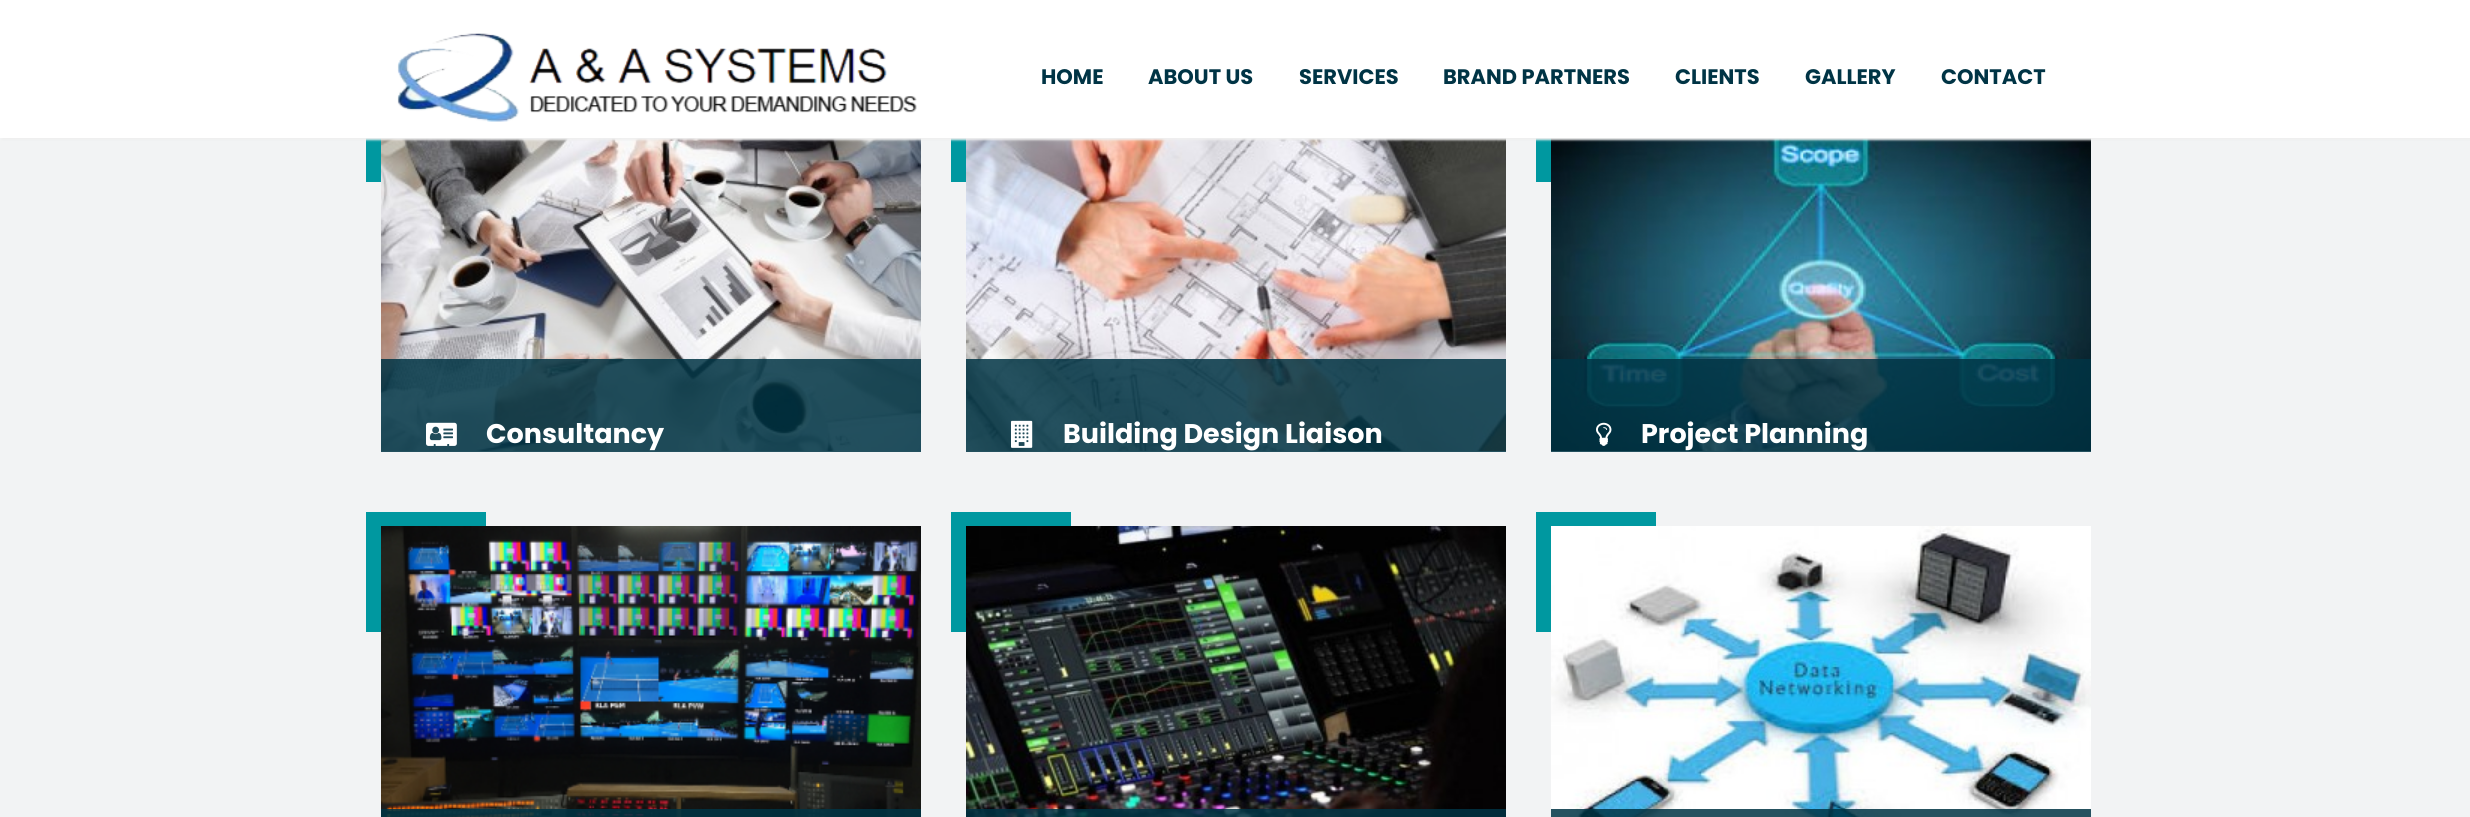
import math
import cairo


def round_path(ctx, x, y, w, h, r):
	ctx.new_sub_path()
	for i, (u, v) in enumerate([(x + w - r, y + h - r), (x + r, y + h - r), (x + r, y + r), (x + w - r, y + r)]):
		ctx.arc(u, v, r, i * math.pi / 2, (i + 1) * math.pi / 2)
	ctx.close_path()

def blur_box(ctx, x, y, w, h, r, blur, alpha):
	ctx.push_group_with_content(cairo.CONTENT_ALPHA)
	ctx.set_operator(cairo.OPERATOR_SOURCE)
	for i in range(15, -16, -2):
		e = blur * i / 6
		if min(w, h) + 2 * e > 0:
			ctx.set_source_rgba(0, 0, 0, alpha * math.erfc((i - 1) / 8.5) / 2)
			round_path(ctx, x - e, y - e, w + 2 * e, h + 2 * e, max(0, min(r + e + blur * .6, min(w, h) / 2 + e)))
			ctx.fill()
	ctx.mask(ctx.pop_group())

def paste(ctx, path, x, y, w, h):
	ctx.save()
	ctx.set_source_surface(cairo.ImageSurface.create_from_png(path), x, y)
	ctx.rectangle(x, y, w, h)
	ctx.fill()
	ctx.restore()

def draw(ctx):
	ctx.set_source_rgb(0.949, 0.953, 0.957)
	ctx.paint()
	ctx.set_source_rgb(0, 0.596, 0.627)
	ctx.rectangle(366, 138, 15, 44)
	ctx.fill()
	paste(ctx, 'media/2.png', 381, 138, 540, 313)
	ctx.rectangle(951, 138, 15, 44)
	ctx.fill()
	paste(ctx, 'media/4.png', 966, 138, 540, 313)
	ctx.rectangle(1536, 138, 15, 44)
	ctx.fill()
	paste(ctx, 'media/6.png', 1551, 138, 540, 313)
	ctx.set_source_rgb(0.937, 0.937, 0.937)
	blur_box(ctx, 2, 2, 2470, 138, 0, 1, 1)
	ctx.set_source_rgb(1, 1, 1)
	ctx.rectangle(0, 0, 2470, 138)
	ctx.fill()
	paste(ctx, 'media/1.png', 397, 33, 520, 89)
	ctx.select_font_face('Poppins', cairo.FONT_SLANT_NORMAL, cairo.FONT_WEIGHT_BOLD)
	ctx.set_font_size(21)
	ctx.set_source_rgb(0, 0.204, 0.271)
	for x, y, s in [
		(1041, 84, 'HOME'),
		(1148, 84, 'ABOUT US'),
		(1299, 84, 'SERVICES'),
		(1443, 84, 'BRAND PARTNERS'),
		(1675, 84, 'CLIENTS'),
		(1805, 84, 'GALLERY'),
		(1941, 84, 'CONTACT'),
	]:
		ctx.move_to(x, y)
		ctx.show_text(s)
	ctx.set_source_rgba(0, 0.204, 0.271, 0.85)
	ctx.rectangle(381, 359, 540, 93)
	ctx.fill()
	paste(ctx, 'media/3.png', 426, 422, 31, 24)
	ctx.set_font_size(27)
	ctx.set_source_rgb(1, 1, 1)
	ctx.move_to(486, 443)
	ctx.show_text('Consultancy')
	ctx.set_source_rgba(0, 0.204, 0.271, 0.85)
	ctx.rectangle(966, 359, 540, 93)
	ctx.fill()
	paste(ctx, 'media/5.png', 1011, 420, 22, 28)
	ctx.set_source_rgb(1, 1, 1)
	ctx.move_to(1063, 443)
	ctx.show_text('Building Design Liaison')
	ctx.set_source_rgba(0, 0.204, 0.271, 0.85)
	ctx.rectangle(1551, 359, 540, 93)
	ctx.fill()
	paste(ctx, 'media/7.png', 1596, 422, 16, 24)
	ctx.set_source_rgb(1, 1, 1)
	ctx.move_to(1641, 443)
	ctx.show_text('Project Planning')
	ctx.set_source_rgb(0, 0.596, 0.627)
	ctx.rectangle(366, 512, 120, 120)
	ctx.fill()
	paste(ctx, 'media/8.png', 381, 526, 540, 291)
	ctx.set_source_rgba(0, 0.204, 0.271, 0.85)
	ctx.rectangle(381, 809, 540, 8)
	ctx.fill()
	ctx.set_source_rgb(0, 0.596, 0.627)
	ctx.rectangle(951, 512, 120, 120)
	ctx.fill()
	paste(ctx, 'media/9.png', 966, 526, 540, 291)
	ctx.set_source_rgba(0, 0.204, 0.271, 0.85)
	ctx.rectangle(966, 809, 540, 8)
	ctx.fill()
	ctx.set_source_rgb(0, 0.596, 0.627)
	ctx.rectangle(1536, 512, 120, 120)
	ctx.fill()
	paste(ctx, 'media/10.png', 1551, 526, 540, 291)
	ctx.set_source_rgba(0, 0.204, 0.271, 0.85)
	ctx.rectangle(1551, 809, 540, 8)
	ctx.fill()


surface = cairo.ImageSurface(cairo.FORMAT_RGB24, 2470, 817)
ctx = cairo.Context(surface)
options = cairo.FontOptions()
options.set_hint_metrics(cairo.HINT_METRICS_OFF)
options.set_hint_style(cairo.HINT_STYLE_NONE)
ctx.set_font_options(options)
ctx.set_miter_limit(4)
draw(ctx)
surface.write_to_png('image.png')
